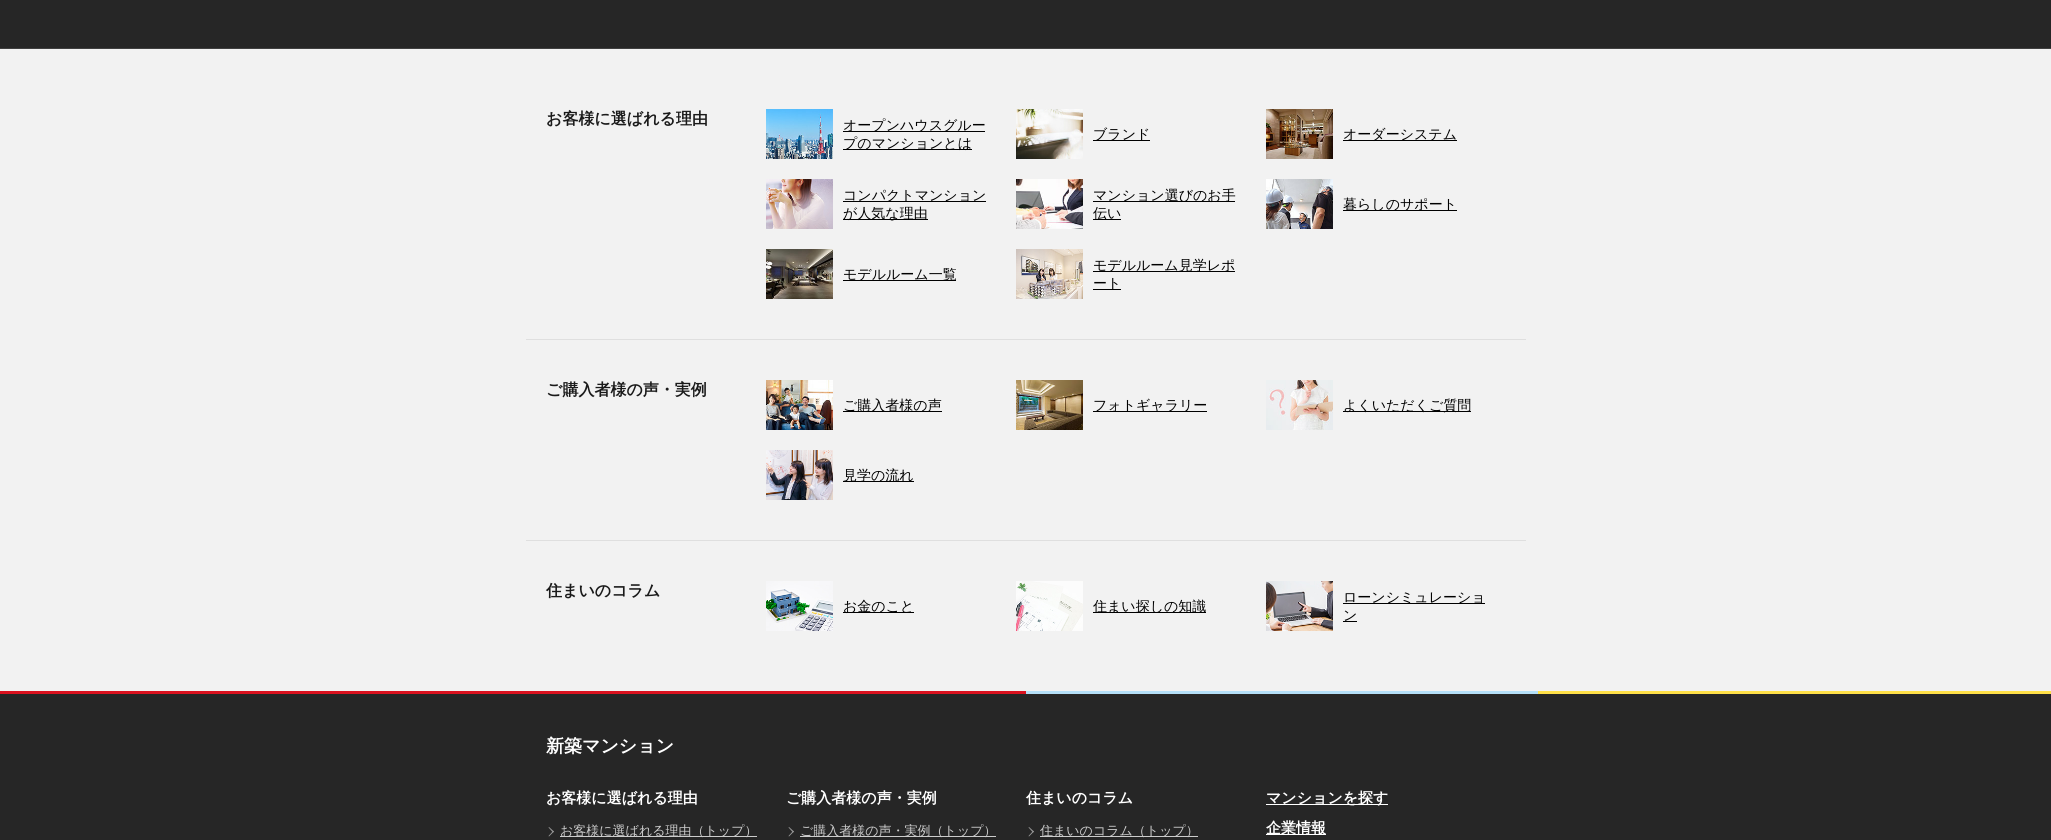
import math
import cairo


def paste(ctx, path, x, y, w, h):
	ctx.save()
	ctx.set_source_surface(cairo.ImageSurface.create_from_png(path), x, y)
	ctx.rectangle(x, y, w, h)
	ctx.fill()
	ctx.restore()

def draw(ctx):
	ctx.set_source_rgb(0.149, 0.149, 0.149)
	ctx.paint()
	ctx.set_source_rgb(0.251, 0.251, 0.251)
	ctx.rectangle(0, 48, 2051, 1)
	ctx.fill()
	ctx.set_source_rgb(0.949, 0.949, 0.949)
	ctx.rectangle(0, 49, 2051, 642)
	ctx.fill()
	ctx.set_source_rgb(0.875, 0.875, 0.875)
	ctx.rectangle(526, 339, 1000, 1)
	ctx.fill()
	ctx.select_font_face('WenQuanYi Zen Hei', cairo.FONT_SLANT_NORMAL, cairo.FONT_WEIGHT_BOLD)
	ctx.set_font_size(16)
	ctx.set_source_rgb(0.102, 0.102, 0.102)
	ctx.move_to(546, 124)
	ctx.show_text('お客様に選ばれる理由')
	paste(ctx, 'media/1.png', 766, 109, 67, 50)
	ctx.set_source_rgb(0, 0, 0)
	ctx.rectangle(843, 131, 142, 1)
	ctx.fill()
	ctx.select_font_face('WenQuanYi Zen Hei Medium')
	ctx.set_font_size(14)
	ctx.move_to(843, 130)
	ctx.show_text('オープンハウスグルー')
	ctx.rectangle(843, 149, 129, 1)
	ctx.fill()
	ctx.move_to(843, 148)
	ctx.show_text('プのマンションとは')
	paste(ctx, 'media/2.png', 1016, 109, 67, 50)
	ctx.rectangle(1093, 140, 57, 1)
	ctx.fill()
	ctx.move_to(1093, 139)
	ctx.show_text('ブランド')
	paste(ctx, 'media/3.png', 1266, 109, 67, 50)
	ctx.rectangle(1343, 140, 114, 1)
	ctx.fill()
	ctx.move_to(1343, 139)
	ctx.show_text('オーダーシステム')
	paste(ctx, 'media/4.png', 766, 179, 67, 50)
	ctx.rectangle(843, 201, 143, 1)
	ctx.fill()
	ctx.move_to(843, 200)
	ctx.show_text('コンパクトマンション')
	ctx.rectangle(843, 219, 85, 1)
	ctx.fill()
	ctx.move_to(843, 218)
	ctx.show_text('が人気な理由')
	paste(ctx, 'media/5.png', 1016, 179, 67, 50)
	ctx.rectangle(1093, 201, 142, 1)
	ctx.fill()
	ctx.move_to(1093, 200)
	ctx.show_text('マンション選びのお手')
	ctx.rectangle(1093, 219, 28, 1)
	ctx.fill()
	ctx.move_to(1093, 218)
	ctx.show_text('伝い')
	paste(ctx, 'media/6.png', 1266, 179, 67, 50)
	ctx.rectangle(1343, 210, 114, 1)
	ctx.fill()
	ctx.move_to(1343, 209)
	ctx.show_text('暮らしのサポート')
	paste(ctx, 'media/7.png', 766, 249, 67, 50)
	ctx.rectangle(843, 280, 113, 1)
	ctx.fill()
	ctx.move_to(843, 279)
	ctx.show_text('モデルルーム一覧')
	paste(ctx, 'media/8.png', 1016, 249, 67, 50)
	ctx.rectangle(1093, 271, 142, 1)
	ctx.fill()
	ctx.move_to(1093, 270)
	ctx.show_text('モデルルーム見学レポ')
	ctx.rectangle(1093, 289, 28, 1)
	ctx.fill()
	ctx.move_to(1093, 288)
	ctx.show_text('ート')
	ctx.set_source_rgb(0.875, 0.875, 0.875)
	ctx.rectangle(526, 540, 1000, 1)
	ctx.fill()
	ctx.select_font_face('WenQuanYi Zen Hei', cairo.FONT_SLANT_NORMAL, cairo.FONT_WEIGHT_BOLD)
	ctx.set_font_size(16)
	ctx.set_source_rgb(0.102, 0.102, 0.102)
	ctx.move_to(546, 395)
	ctx.show_text('ご購入者様の声・実例')
	paste(ctx, 'media/9.png', 766, 380, 67, 50)
	ctx.set_source_rgb(0, 0, 0)
	ctx.rectangle(843, 411, 99, 1)
	ctx.fill()
	ctx.select_font_face('WenQuanYi Zen Hei Medium')
	ctx.set_font_size(14)
	ctx.move_to(843, 410)
	ctx.show_text('ご購入者様の声')
	paste(ctx, 'media/10.png', 1016, 380, 67, 50)
	ctx.rectangle(1093, 411, 114, 1)
	ctx.fill()
	ctx.move_to(1093, 410)
	ctx.show_text('フォトギャラリー')
	paste(ctx, 'media/11.png', 1266, 380, 67, 50)
	ctx.rectangle(1343, 411, 128, 1)
	ctx.fill()
	ctx.move_to(1343, 410)
	ctx.show_text('よくいただくご質問')
	paste(ctx, 'media/12.png', 766, 450, 67, 50)
	ctx.rectangle(843, 481, 71, 1)
	ctx.fill()
	ctx.move_to(843, 480)
	ctx.show_text('見学の流れ')
	ctx.select_font_face('WenQuanYi Zen Hei', cairo.FONT_SLANT_NORMAL, cairo.FONT_WEIGHT_BOLD)
	ctx.set_font_size(16)
	ctx.set_source_rgb(0.102, 0.102, 0.102)
	ctx.move_to(546, 596)
	ctx.show_text('住まいのコラム')
	paste(ctx, 'media/13.png', 766, 581, 67, 50)
	ctx.set_source_rgb(0, 0, 0)
	ctx.rectangle(843, 612, 71, 1)
	ctx.fill()
	ctx.select_font_face('WenQuanYi Zen Hei Medium')
	ctx.set_font_size(14)
	ctx.move_to(843, 611)
	ctx.show_text('お金のこと')
	paste(ctx, 'media/14.png', 1016, 581, 67, 50)
	ctx.rectangle(1093, 612, 113, 1)
	ctx.fill()
	ctx.move_to(1093, 611)
	ctx.show_text('住まい探しの知識')
	paste(ctx, 'media/15.png', 1266, 581, 67, 50)
	ctx.rectangle(1343, 603, 142, 1)
	ctx.fill()
	ctx.move_to(1343, 602)
	ctx.show_text('ローンシミュレーショ')
	ctx.move_to(1343, 620)
	ctx.show_text('ン')
	ctx.rectangle(1343, 621, 14, 1)
	ctx.fill()
	ctx.set_source_rgb(0.855, 0.071, 0.122)
	ctx.rectangle(0, 691, 1026, 3)
	ctx.fill()
	ctx.set_source_rgb(0.706, 0.875, 0.965)
	ctx.rectangle(1026, 691, 512, 3)
	ctx.fill()
	ctx.set_source_rgb(1, 0.878, 0.282)
	ctx.rectangle(1538, 691, 513, 3)
	ctx.fill()
	ctx.select_font_face('WenQuanYi Zen Hei', cairo.FONT_SLANT_NORMAL, cairo.FONT_WEIGHT_BOLD)
	ctx.set_font_size(18)
	ctx.set_source_rgb(1, 1, 1)
	ctx.move_to(546, 752)
	ctx.show_text('新築マンション')
	ctx.set_font_size(15)
	ctx.move_to(546, 803)
	ctx.show_text('お客様に選ばれる理由')
	ctx.set_source_rgb(0.6, 0.6, 0.6)
	ctx.new_path()
	ctx.move_to(549, 827)
	ctx.line_to(554, 831.5)
	ctx.line_to(553, 832.5)
	ctx.line_to(548.5, 827.5)
	ctx.close_path()
	ctx.fill()
	ctx.new_path()
	ctx.move_to(553, 831)
	ctx.line_to(554, 831.5)
	ctx.line_to(549, 836.5)
	ctx.line_to(548.5, 836)
	ctx.close_path()
	ctx.fill()
	ctx.set_source_rgb(0.8, 0.8, 0.8)
	ctx.rectangle(560, 836, 197, 1)
	ctx.fill()
	ctx.select_font_face('WenQuanYi Zen Hei Medium')
	ctx.set_font_size(13)
	ctx.move_to(560, 835)
	ctx.show_text('お客様に選ばれる理由（トップ）')
	ctx.select_font_face('WenQuanYi Zen Hei', cairo.FONT_SLANT_NORMAL, cairo.FONT_WEIGHT_BOLD)
	ctx.set_font_size(15)
	ctx.set_source_rgb(1, 1, 1)
	ctx.move_to(786, 803)
	ctx.show_text('ご購入者様の声・実例')
	ctx.set_source_rgb(0.6, 0.6, 0.6)
	ctx.new_path()
	ctx.move_to(789, 827)
	ctx.line_to(794, 831.5)
	ctx.line_to(793, 832.5)
	ctx.line_to(788.5, 827.5)
	ctx.close_path()
	ctx.fill()
	ctx.new_path()
	ctx.move_to(793, 831)
	ctx.line_to(794, 831.5)
	ctx.line_to(789, 836.5)
	ctx.line_to(788.5, 836)
	ctx.close_path()
	ctx.fill()
	ctx.set_source_rgb(0.8, 0.8, 0.8)
	ctx.rectangle(800, 836, 196, 1)
	ctx.fill()
	ctx.select_font_face('WenQuanYi Zen Hei Medium')
	ctx.set_font_size(13)
	ctx.move_to(800, 835)
	ctx.show_text('ご購入者様の声・実例（トップ）')
	ctx.select_font_face('WenQuanYi Zen Hei', cairo.FONT_SLANT_NORMAL, cairo.FONT_WEIGHT_BOLD)
	ctx.set_font_size(15)
	ctx.set_source_rgb(1, 1, 1)
	ctx.move_to(1026, 803)
	ctx.show_text('住まいのコラム')
	ctx.set_source_rgb(0.6, 0.6, 0.6)
	ctx.new_path()
	ctx.move_to(1029, 827)
	ctx.line_to(1034, 831.5)
	ctx.line_to(1033, 832.5)
	ctx.line_to(1028.5, 827.5)
	ctx.close_path()
	ctx.fill()
	ctx.new_path()
	ctx.move_to(1033, 831)
	ctx.line_to(1034, 831.5)
	ctx.line_to(1029, 836.5)
	ctx.line_to(1028.5, 836)
	ctx.close_path()
	ctx.fill()
	ctx.set_source_rgb(0.8, 0.8, 0.8)
	ctx.rectangle(1040, 836, 158, 1)
	ctx.fill()
	ctx.select_font_face('WenQuanYi Zen Hei Medium')
	ctx.set_font_size(13)
	ctx.move_to(1040, 835)
	ctx.show_text('住まいのコラム（トップ）')
	ctx.set_source_rgb(1, 1, 1)
	ctx.rectangle(1266, 804, 122, 1)
	ctx.fill()
	ctx.select_font_face('WenQuanYi Zen Hei', cairo.FONT_SLANT_NORMAL, cairo.FONT_WEIGHT_BOLD)
	ctx.set_font_size(15)
	ctx.move_to(1266, 803)
	ctx.show_text('マンションを探す')
	ctx.rectangle(1266, 834, 60, 1)
	ctx.fill()
	ctx.move_to(1266, 833)
	ctx.show_text('企業情報')


surface = cairo.ImageSurface(cairo.FORMAT_RGB24, 2051, 840)
ctx = cairo.Context(surface)
options = cairo.FontOptions()
options.set_hint_metrics(cairo.HINT_METRICS_OFF)
options.set_hint_style(cairo.HINT_STYLE_NONE)
ctx.set_font_options(options)
ctx.set_miter_limit(4)
draw(ctx)
surface.write_to_png('image.png')
